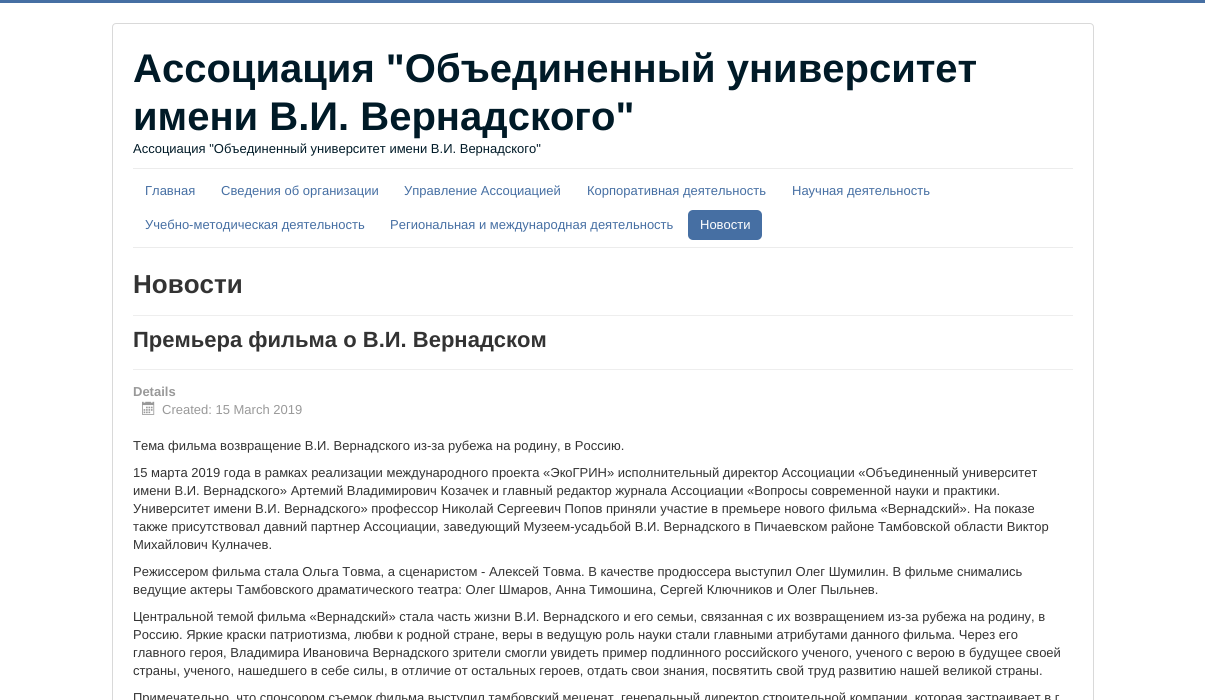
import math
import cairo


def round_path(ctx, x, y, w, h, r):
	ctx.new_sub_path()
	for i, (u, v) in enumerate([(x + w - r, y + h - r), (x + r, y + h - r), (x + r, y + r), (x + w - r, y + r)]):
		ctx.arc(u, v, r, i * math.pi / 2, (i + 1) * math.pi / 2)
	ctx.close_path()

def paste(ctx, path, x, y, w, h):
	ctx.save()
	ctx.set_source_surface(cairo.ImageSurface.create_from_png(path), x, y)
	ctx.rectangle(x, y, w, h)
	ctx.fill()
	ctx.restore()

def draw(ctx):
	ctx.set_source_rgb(1, 1, 1)
	ctx.paint()
	ctx.set_source_rgb(0.275, 0.435, 0.639)
	ctx.rectangle(0, 0, 1205, 3)
	ctx.fill()
	round_path(ctx, 112.5, 23.5, 981, 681, 3.5)
	ctx.set_source_rgb(0.851, 0.851, 0.851)
	ctx.set_line_width(1)
	ctx.stroke()
	ctx.select_font_face('Liberation Sans', cairo.FONT_SLANT_NORMAL, cairo.FONT_WEIGHT_BOLD)
	ctx.set_font_size(40)
	ctx.set_source_rgb(0, 0.102, 0.153)
	ctx.move_to(133, 82)
	ctx.show_text('Ассоциация "Объединенный университет')
	ctx.move_to(133, 130)
	ctx.show_text('имени В.И. Вернадского"')
	ctx.select_font_face('Liberation Sans')
	ctx.set_font_size(13)
	ctx.move_to(133, 153)
	ctx.show_text('Ассоциация "Объединенный университет имени В.И. Вернадского"')
	ctx.set_source_rgb(0.925, 0.925, 0.925)
	ctx.rectangle(133, 168, 940, 1)
	ctx.fill()
	ctx.rectangle(133, 247, 940, 1)
	ctx.fill()
	ctx.set_source_rgb(0.275, 0.435, 0.639)
	for x, y, s in [
		(145, 195, 'Главная'),
		(221, 195, 'Сведения об организации'),
		(404, 195, 'Управление Ассоциацией'),
		(587, 195, 'Корпоративная деятельность'),
		(792, 195, 'Научная деятельность'),
		(145, 229, 'Учебно-методическая деятельность'),
		(390, 229, 'Региональная и международная деятельность'),
	]:
		ctx.move_to(x, y)
		ctx.show_text(s)
	round_path(ctx, 688, 210, 74, 30, 5)
	ctx.fill()
	ctx.set_source_rgb(1, 1, 1)
	ctx.move_to(700, 229)
	ctx.show_text('Новости')
	ctx.set_source_rgb(0.933, 0.933, 0.933)
	ctx.rectangle(133, 315, 940, 1)
	ctx.fill()
	ctx.select_font_face('Liberation Sans', cairo.FONT_SLANT_NORMAL, cairo.FONT_WEIGHT_BOLD)
	ctx.set_font_size(26)
	ctx.set_source_rgb(0.2, 0.2, 0.2)
	ctx.move_to(133, 293)
	ctx.show_text('Новости')
	ctx.set_source_rgb(0.933, 0.933, 0.933)
	ctx.rectangle(133, 369, 940, 1)
	ctx.fill()
	ctx.set_font_size(22)
	ctx.set_source_rgb(0.2, 0.2, 0.2)
	ctx.move_to(133, 347)
	ctx.show_text('Премьера фильма о В.И. Вернадском')
	ctx.set_font_size(13)
	ctx.set_source_rgb(0.6, 0.6, 0.6)
	ctx.move_to(133, 396)
	ctx.show_text('Details')
	paste(ctx, 'media/1.png', 142, 401, 13, 14)
	ctx.select_font_face('Liberation Sans')
	ctx.move_to(162, 414)
	ctx.show_text('Created: 15 March 2019')
	ctx.set_source_rgb(0.2, 0.2, 0.2)
	for x, y, s in [
		(133, 450, 'Тема фильма возвращение В.И. Вернадского из-за рубежа на родину, в Россию.'),
		(133, 477, '15 марта 2019 года в рамках реализации международного проекта «ЭкоГРИН» исполнительный директор Ассоциации «Объединенный университет'),
		(133, 495, 'имени В.И. Вернадского» Артемий Владимирович Козачек и главный редактор журнала Ассоциации «Вопросы современной науки и практики.'),
		(133, 513, 'Университет имени В.И. Вернадского» профессор Николай Сергеевич Попов приняли участие в премьере нового фильма «Вернадский». На показе'),
		(133, 531, 'также присутствовал давний партнер Ассоциации, заведующий Музеем-усадьбой В.И. Вернадского в Пичаевском районе Тамбовской области Виктор'),
		(133, 549, 'Михайлович Кулначев.'),
		(133, 576, 'Режиссером фильма стала Ольга Товма, а сценаристом - Алексей Товма. В качестве продюссера выступил Олег Шумилин. В фильме снимались'),
		(133, 594, 'ведущие актеры Тамбовского драматического театра: Олег Шмаров, Анна Тимошина, Сергей Ключников и Олег Пыльнев.'),
		(133, 621, 'Центральной темой фильма «Вернадский» стала часть жизни В.И. Вернадского и его семьи, связанная с их возвращением из-за рубежа на родину, в'),
		(133, 639, 'Россию. Яркие краски патриотизма, любви к родной стране, веры в ведущую роль науки стали главными атрибутами данного фильма. Через его'),
		(133, 657, 'главного героя, Владимира Ивановича Вернадского зрители смогли увидеть пример подлинного российского ученого, ученого с верою в будущее своей'),
		(133, 675, 'страны, ученого, нашедшего в себе силы, в отличие от остальных героев, отдать свои знания, посвятить свой труд развитию нашей великой страны.'),
		(133, 702, 'Примечательно, что спонсором съемок фильма выступил тамбовский меценат, генеральный директор строительной компании, которая застраивает в г'),
	]:
		ctx.move_to(x, y)
		ctx.show_text(s)


surface = cairo.ImageSurface(cairo.FORMAT_RGB24, 1205, 700)
ctx = cairo.Context(surface)
options = cairo.FontOptions()
options.set_hint_metrics(cairo.HINT_METRICS_OFF)
options.set_hint_style(cairo.HINT_STYLE_NONE)
ctx.set_font_options(options)
ctx.set_miter_limit(4)
draw(ctx)
surface.write_to_png('image.png')
